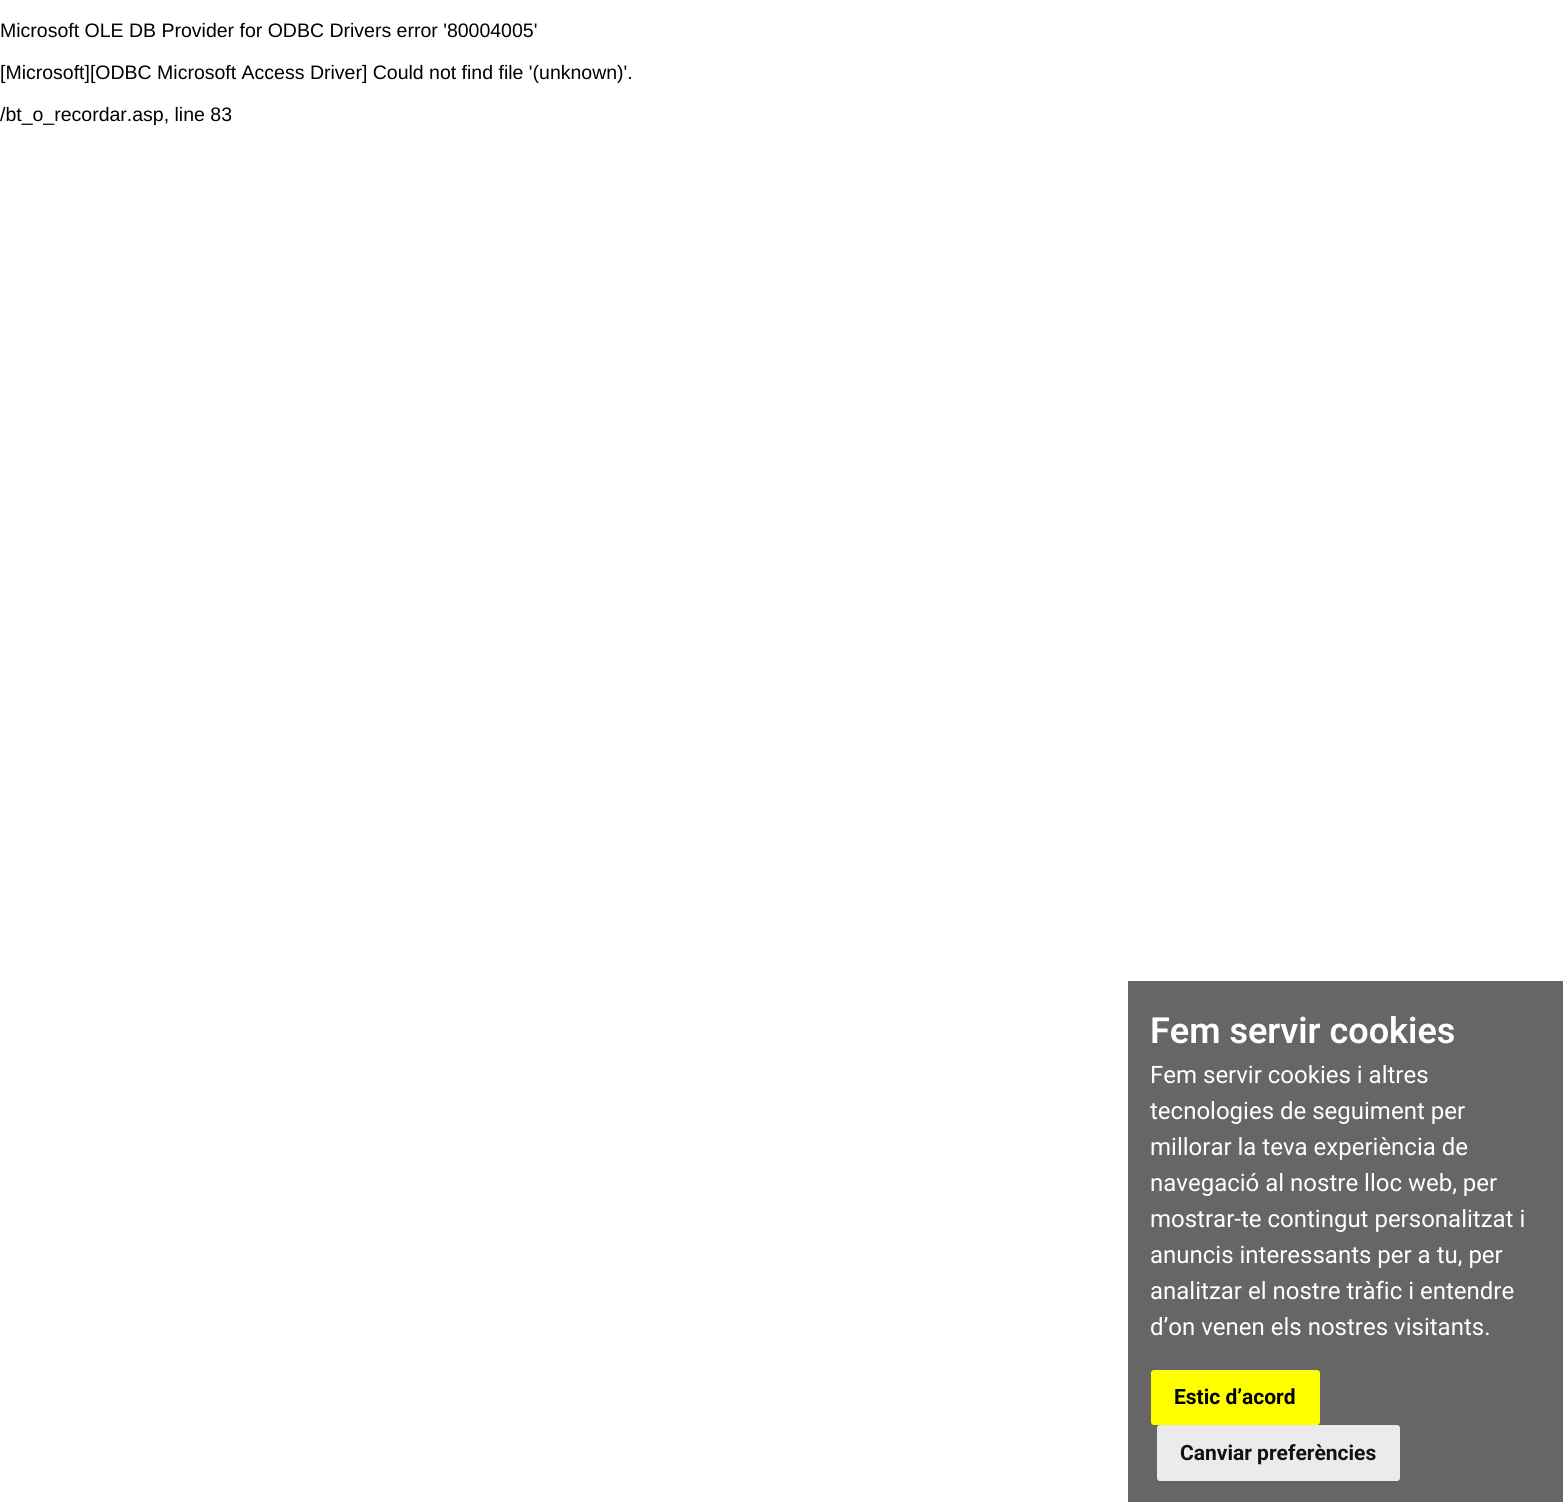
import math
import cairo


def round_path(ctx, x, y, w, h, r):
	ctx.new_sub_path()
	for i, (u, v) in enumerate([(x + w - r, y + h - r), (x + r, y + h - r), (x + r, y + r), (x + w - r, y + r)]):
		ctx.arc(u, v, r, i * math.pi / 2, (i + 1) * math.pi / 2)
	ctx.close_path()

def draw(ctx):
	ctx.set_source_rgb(1, 1, 1)
	ctx.paint()
	ctx.select_font_face('Liberation Sans')
	ctx.set_font_size(19.5)
	ctx.set_source_rgb(0, 0, 0)
	for x, y, s in [
		(0, 37, 'Microsoft OLE DB Provider for ODBC Drivers error \'80004005\''),
		(0, 79, '[Microsoft][ODBC Microsoft Access Driver] Could not find file \'(unknown)\'.'),
		(0, 121, '/bt_o_recordar.asp, line 83'),
	]:
		ctx.move_to(x, y)
		ctx.show_text(s)
	ctx.set_source_rgb(0.4, 0.4, 0.4)
	ctx.rectangle(1128, 981, 435, 521)
	ctx.fill()
	ctx.select_font_face('Roboto SemiBold')
	ctx.set_font_size(36)
	ctx.set_source_rgb(1, 1, 1)
	ctx.move_to(1150, 1043)
	ctx.show_text('Fem servir cookies')
	ctx.select_font_face('Roboto')
	ctx.set_font_size(24)
	for x, y, s in [
		(1150, 1083, 'Fem servir cookies i altres'),
		(1150, 1119, 'tecnologies de seguiment per'),
		(1150, 1155, 'millorar la teva experiència de'),
		(1150, 1191, 'navegació al nostre lloc web, per'),
		(1150, 1227, 'mostrar-te contingut personalitzat i'),
		(1150, 1263, 'anuncis interessants per a tu, per'),
		(1150, 1299, 'analitzar el nostre tràfic i entendre'),
		(1150, 1335, 'd’on venen els nostres visitants.'),
	]:
		ctx.move_to(x, y)
		ctx.show_text(s)
	ctx.set_source_rgb(1, 1, 0)
	round_path(ctx, 1151, 1370, 169, 55, 3)
	ctx.fill()
	ctx.select_font_face('Roboto', cairo.FONT_SLANT_NORMAL, cairo.FONT_WEIGHT_BOLD)
	ctx.set_font_size(21)
	ctx.set_source_rgb(0, 0, 0)
	ctx.move_to(1174, 1404)
	ctx.show_text('Estic d’acord')
	ctx.set_source_rgb(0.918, 0.918, 0.918)
	round_path(ctx, 1157, 1425, 243, 56, 3)
	ctx.fill()
	ctx.set_source_rgb(0.067, 0.067, 0.067)
	ctx.move_to(1180, 1460)
	ctx.show_text('Canviar preferències')


surface = cairo.ImageSurface(cairo.FORMAT_RGB24, 1563, 1502)
ctx = cairo.Context(surface)
options = cairo.FontOptions()
options.set_hint_metrics(cairo.HINT_METRICS_OFF)
options.set_hint_style(cairo.HINT_STYLE_NONE)
ctx.set_font_options(options)
ctx.set_miter_limit(4)
draw(ctx)
surface.write_to_png('image.png')
